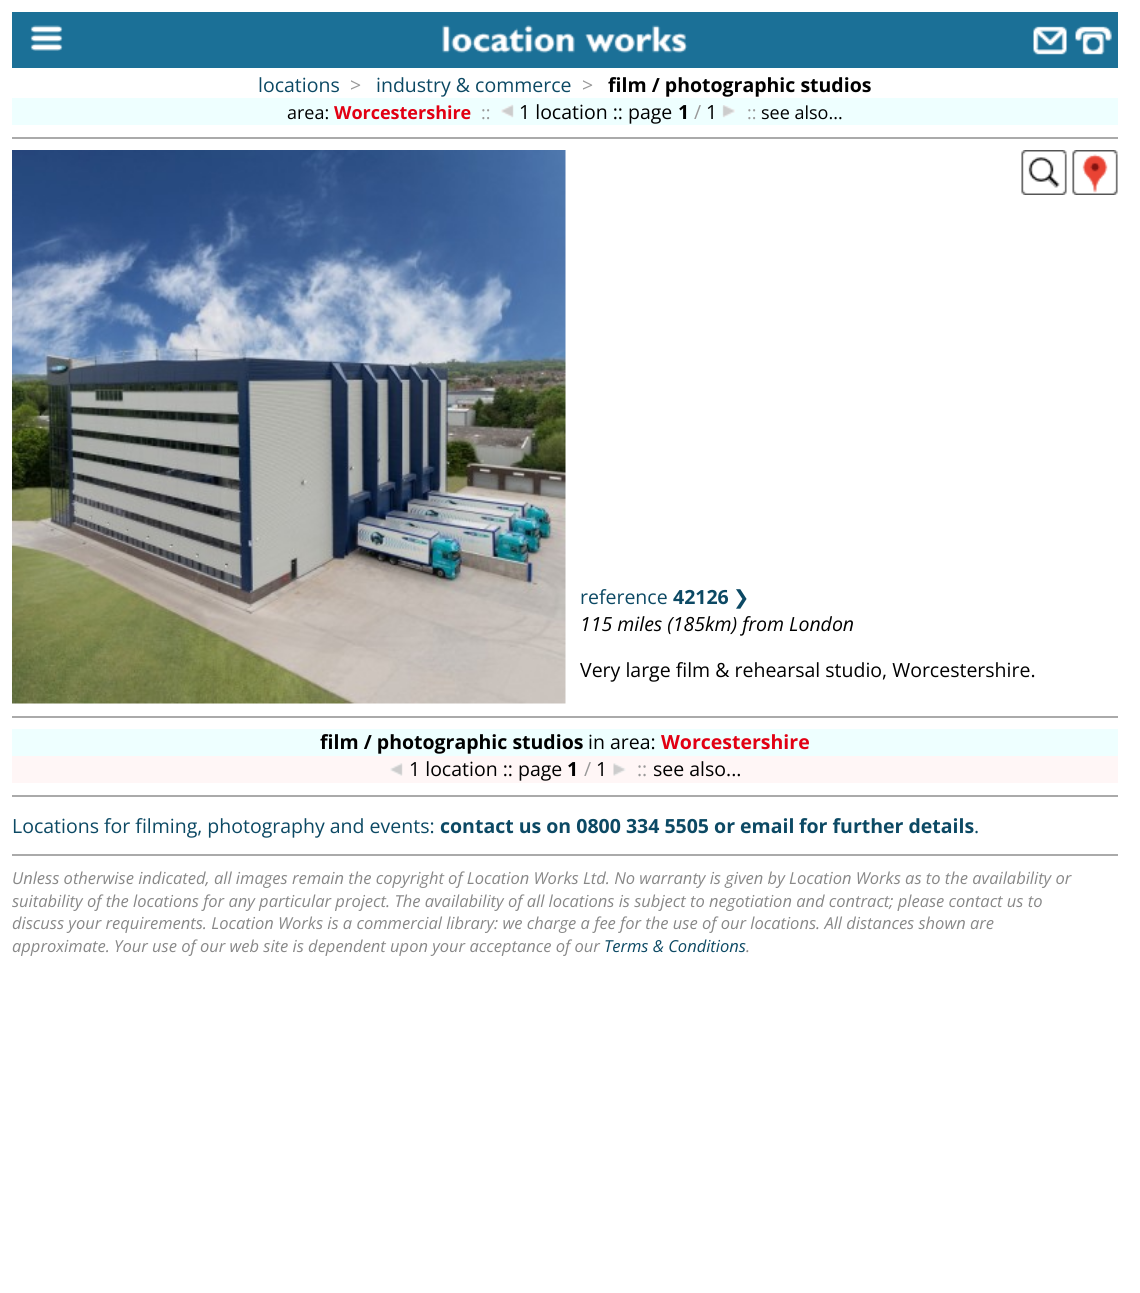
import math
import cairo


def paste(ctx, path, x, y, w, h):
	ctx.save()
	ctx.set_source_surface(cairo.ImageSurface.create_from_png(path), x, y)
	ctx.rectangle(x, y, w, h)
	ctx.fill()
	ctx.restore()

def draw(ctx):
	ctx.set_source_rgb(1, 1, 1)
	ctx.paint()
	ctx.set_source_rgb(0.106, 0.439, 0.592)
	ctx.rectangle(12, 12, 1106, 56)
	ctx.fill()
	paste(ctx, 'media/1.png', 30, 25, 33, 26)
	paste(ctx, 'media/2.png', 442, 25, 246, 28)
	paste(ctx, 'media/3.png', 1033, 26, 34, 29)
	paste(ctx, 'media/4.png', 1075, 26, 37, 29)
	ctx.select_font_face('Open Sans')
	ctx.set_font_size(19.5)
	ctx.set_source_rgb(0.047, 0.286, 0.392)
	ctx.move_to(258, 92)
	ctx.show_text('locations')
	ctx.set_source_rgb(0.6, 0.6, 0.6)
	ctx.move_to(350, 92)
	ctx.show_text('>')
	ctx.set_source_rgb(0.047, 0.286, 0.392)
	ctx.move_to(376, 92)
	ctx.show_text('industry & commerce')
	ctx.set_source_rgb(0.6, 0.6, 0.6)
	ctx.move_to(582, 92)
	ctx.show_text('>')
	ctx.select_font_face('Open Sans', cairo.FONT_SLANT_NORMAL, cairo.FONT_WEIGHT_BOLD)
	ctx.set_source_rgb(0, 0, 0)
	ctx.move_to(608, 92)
	ctx.show_text('film / photographic studios')
	ctx.set_source_rgb(0.933, 1, 1)
	ctx.rectangle(12, 98, 1106, 27)
	ctx.fill()
	ctx.select_font_face('Open Sans')
	ctx.set_font_size(18)
	ctx.set_source_rgb(0, 0, 0)
	ctx.move_to(287, 119)
	ctx.show_text('area:')
	ctx.select_font_face('Open Sans', cairo.FONT_SLANT_NORMAL, cairo.FONT_WEIGHT_BOLD)
	ctx.set_source_rgb(0.886, 0, 0.078)
	ctx.move_to(334, 119)
	ctx.show_text('Worcestershire')
	ctx.select_font_face('Open Sans')
	ctx.set_source_rgb(0.6, 0.6, 0.6)
	ctx.move_to(481, 119)
	ctx.show_text('::')
	paste(ctx, 'media/5.png', 501, 104, 13, 14)
	ctx.set_font_size(19.5)
	ctx.set_source_rgb(0, 0, 0)
	ctx.move_to(519, 119)
	ctx.show_text('1 location :: page')
	ctx.select_font_face('Open Sans', cairo.FONT_SLANT_NORMAL, cairo.FONT_WEIGHT_BOLD)
	ctx.move_to(678, 119)
	ctx.show_text('1')
	ctx.select_font_face('Open Sans')
	ctx.set_source_rgb(0.6, 0.6, 0.6)
	ctx.move_to(694, 119)
	ctx.show_text('/')
	ctx.set_source_rgb(0, 0, 0)
	ctx.move_to(706, 119)
	ctx.show_text('1')
	paste(ctx, 'media/6.png', 722, 105, 13, 13)
	ctx.set_font_size(18)
	ctx.set_source_rgb(0.6, 0.6, 0.6)
	ctx.move_to(747, 119)
	ctx.show_text('::')
	ctx.set_source_rgb(0, 0, 0)
	ctx.move_to(761, 119)
	ctx.show_text('see also...')
	ctx.set_source_rgb(0.667, 0.667, 0.667)
	ctx.rectangle(12, 137, 1106, 2)
	ctx.fill()
	paste(ctx, 'media/7.png', 12, 150, 554, 554)
	paste(ctx, 'media/8.png', 1021, 150, 46, 45)
	paste(ctx, 'media/9.png', 1072, 150, 46, 45)
	ctx.set_font_size(19.5)
	ctx.set_source_rgb(0.047, 0.286, 0.392)
	ctx.move_to(580, 604)
	ctx.show_text('reference')
	ctx.select_font_face('Open Sans', cairo.FONT_SLANT_NORMAL, cairo.FONT_WEIGHT_BOLD)
	ctx.move_to(673, 604)
	ctx.show_text('42126')
	ctx.select_font_face('DejaVu Sans')
	ctx.move_to(733, 604)
	ctx.show_text('❯')
	ctx.select_font_face('Open Sans', cairo.FONT_SLANT_ITALIC)
	ctx.set_source_rgb(0, 0, 0)
	ctx.move_to(580, 631)
	ctx.show_text('115 miles (185km) from London')
	ctx.select_font_face('Open Sans')
	ctx.move_to(580, 677)
	ctx.show_text('Very large film & rehearsal studio, Worcestershire.')
	ctx.set_source_rgb(0.667, 0.667, 0.667)
	ctx.rectangle(12, 716, 1106, 2)
	ctx.fill()
	ctx.set_source_rgb(0.933, 1, 1)
	ctx.rectangle(12, 729, 1106, 27)
	ctx.fill()
	ctx.select_font_face('Open Sans', cairo.FONT_SLANT_NORMAL, cairo.FONT_WEIGHT_BOLD)
	ctx.set_source_rgb(0, 0, 0)
	ctx.move_to(320, 749)
	ctx.show_text('film / photographic studios')
	ctx.select_font_face('Open Sans')
	ctx.move_to(588, 749)
	ctx.show_text('in area:')
	ctx.select_font_face('Open Sans', cairo.FONT_SLANT_NORMAL, cairo.FONT_WEIGHT_BOLD)
	ctx.set_source_rgb(0.886, 0, 0.078)
	ctx.move_to(661, 749)
	ctx.show_text('Worcestershire')
	ctx.set_source_rgb(1, 0.961, 0.961)
	ctx.rectangle(12, 756, 1106, 27)
	ctx.fill()
	paste(ctx, 'media/10.png', 390, 763, 13, 13)
	ctx.select_font_face('Open Sans')
	ctx.set_source_rgb(0, 0, 0)
	ctx.move_to(409, 776)
	ctx.show_text('1 location :: page')
	ctx.select_font_face('Open Sans', cairo.FONT_SLANT_NORMAL, cairo.FONT_WEIGHT_BOLD)
	ctx.move_to(567, 776)
	ctx.show_text('1')
	ctx.select_font_face('Open Sans')
	ctx.set_source_rgb(0.6, 0.6, 0.6)
	ctx.move_to(584, 776)
	ctx.show_text('/')
	ctx.set_source_rgb(0, 0, 0)
	ctx.move_to(596, 776)
	ctx.show_text('1')
	paste(ctx, 'media/11.png', 613, 763, 13, 13)
	ctx.set_source_rgb(0.6, 0.6, 0.6)
	ctx.move_to(637, 776)
	ctx.show_text('::')
	ctx.set_source_rgb(0, 0, 0)
	ctx.move_to(653, 776)
	ctx.show_text('see also...')
	ctx.set_source_rgb(0.667, 0.667, 0.667)
	ctx.rectangle(12, 795, 1106, 2)
	ctx.fill()
	ctx.set_source_rgb(0.047, 0.286, 0.392)
	ctx.move_to(12, 833)
	ctx.show_text('Locations for filming, photography and events:')
	ctx.select_font_face('Open Sans', cairo.FONT_SLANT_NORMAL, cairo.FONT_WEIGHT_BOLD)
	for x, y, s in [
		(440, 833, 'contact us on 0800 334 5505 or'),
		(740, 833, 'email'),
		(799, 833, 'for further details'),
	]:
		ctx.move_to(x, y)
		ctx.show_text(s)
	ctx.select_font_face('Open Sans')
	ctx.move_to(974, 833)
	ctx.show_text('.')
	ctx.set_source_rgb(0.667, 0.667, 0.667)
	ctx.rectangle(12, 854, 1106, 2)
	ctx.fill()
	ctx.select_font_face('Open Sans', cairo.FONT_SLANT_ITALIC)
	ctx.set_font_size(16.5)
	ctx.set_source_rgb(0.533, 0.533, 0.533)
	for x, y, s in [
		(12, 884, 'Unless otherwise indicated, all images remain the copyright of Location Works Ltd. No warranty is given by Location Works as to the availability or'),
		(12, 907, 'suitability of the locations for any particular project. The availability of all locations is subject to negotiation and contract; please contact us to'),
		(12, 929, 'discuss your requirements. Location Works is a commercial library: we charge a fee for the use of our locations. All distances shown are'),
		(12, 952, 'approximate. Your use of our web site is dependent upon your acceptance of our'),
	]:
		ctx.move_to(x, y)
		ctx.show_text(s)
	ctx.set_source_rgb(0.047, 0.286, 0.392)
	ctx.move_to(604, 952)
	ctx.show_text('Terms & Conditions')
	ctx.set_source_rgb(0.533, 0.533, 0.533)
	ctx.move_to(746, 952)
	ctx.show_text('.')


surface = cairo.ImageSurface(cairo.FORMAT_RGB24, 1140, 1293)
ctx = cairo.Context(surface)
options = cairo.FontOptions()
options.set_hint_metrics(cairo.HINT_METRICS_OFF)
options.set_hint_style(cairo.HINT_STYLE_NONE)
ctx.set_font_options(options)
ctx.set_miter_limit(4)
draw(ctx)
surface.write_to_png('image.png')
